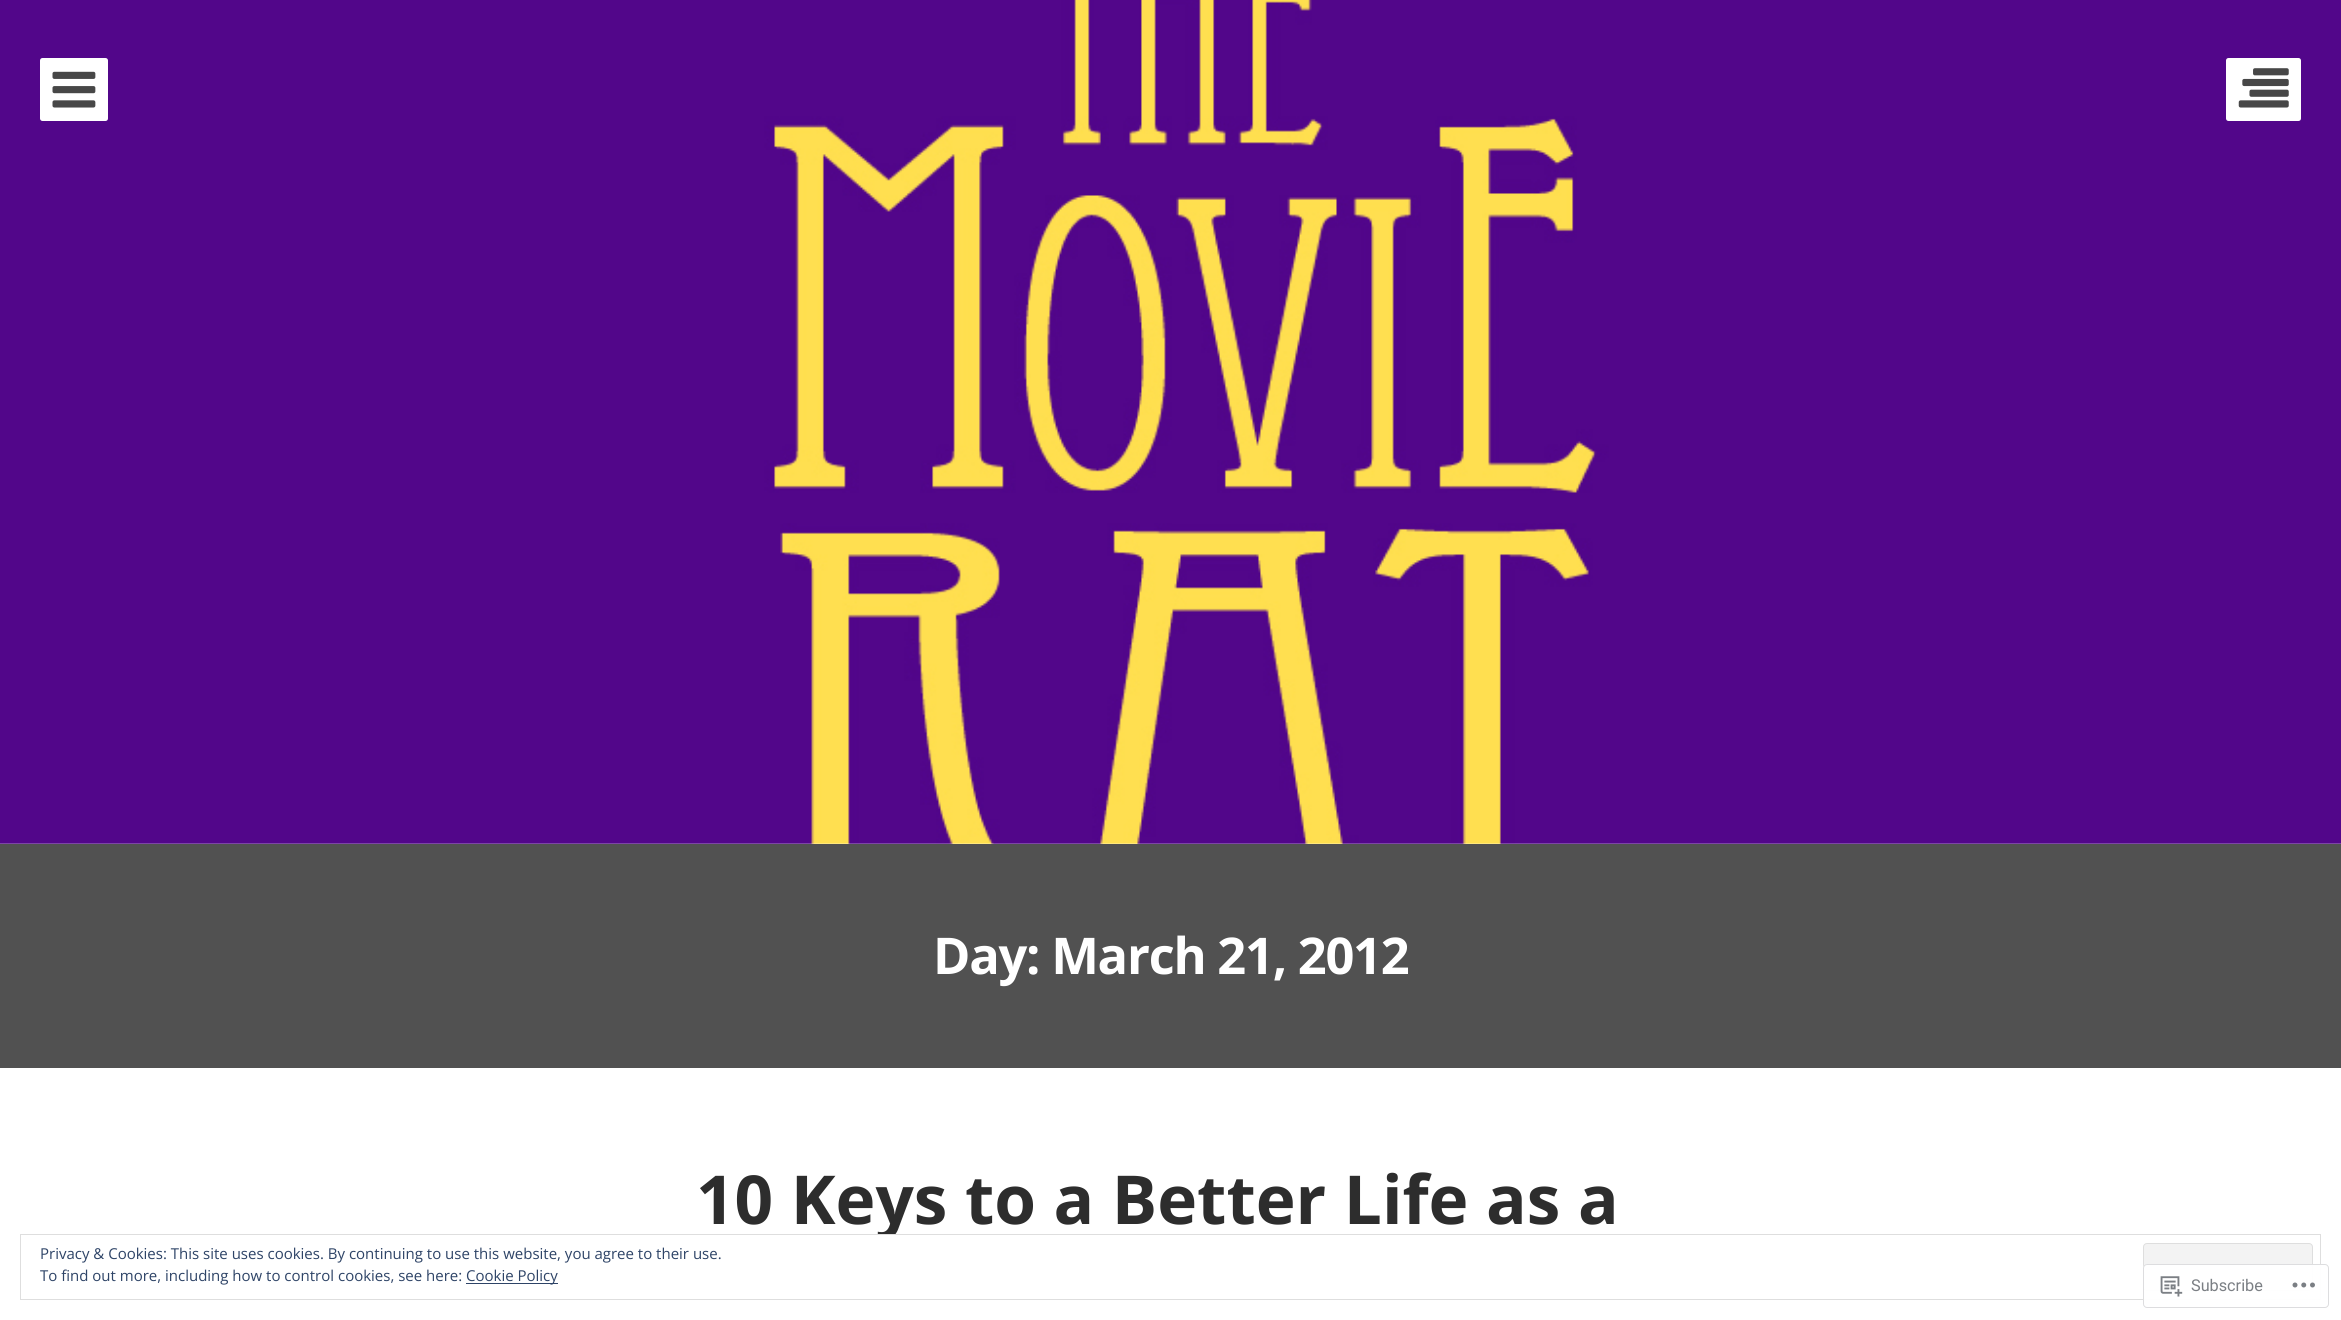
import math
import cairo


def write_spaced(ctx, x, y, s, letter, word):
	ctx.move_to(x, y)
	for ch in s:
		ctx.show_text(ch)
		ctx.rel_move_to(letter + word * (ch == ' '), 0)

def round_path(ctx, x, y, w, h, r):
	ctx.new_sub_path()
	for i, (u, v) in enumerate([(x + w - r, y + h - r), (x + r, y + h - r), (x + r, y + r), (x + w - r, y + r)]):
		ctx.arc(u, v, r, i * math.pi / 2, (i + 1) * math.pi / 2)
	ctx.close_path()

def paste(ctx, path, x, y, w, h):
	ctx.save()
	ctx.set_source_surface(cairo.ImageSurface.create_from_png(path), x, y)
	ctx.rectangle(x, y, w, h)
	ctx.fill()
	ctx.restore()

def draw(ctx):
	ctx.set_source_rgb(1, 1, 1)
	ctx.paint()
	paste(ctx, 'media/1.png', 0, 0, 2341, 844)
	ctx.set_source_rgb(1, 1, 1)
	round_path(ctx, 40, 58, 68, 63, 2.5)
	ctx.fill()
	paste(ctx, 'media/2.png', 52, 71, 44, 37)
	round_path(ctx, 2226, 58, 75, 63, 2.5)
	ctx.fill()
	paste(ctx, 'media/3.png', 2238, 68, 51, 40)
	ctx.set_source_rgb(0.318, 0.318, 0.318)
	ctx.rectangle(0, 844, 2341, 224)
	ctx.fill()
	ctx.select_font_face('Open Sans', cairo.FONT_SLANT_NORMAL, cairo.FONT_WEIGHT_BOLD)
	ctx.set_font_size(50.6)
	ctx.set_source_rgb(1, 1, 1)
	write_spaced(ctx, 933, 974, 'Day: March 21, 2012', -1.25, 0)
	ctx.set_font_size(67.5)
	ctx.set_source_rgb(0.176, 0.176, 0.176)
	ctx.move_to(696, 1224)
	ctx.show_text('10 Keys to a Better Life as a')
	ctx.set_source_rgb(1, 1, 1)
	ctx.rectangle(877, 1235, 18, 6)
	ctx.fill()
	ctx.rectangle(20.5, 1234.5, 2300, 65)
	ctx.set_source_rgb(0.871, 0.871, 0.871)
	ctx.set_line_width(1)
	ctx.stroke()
	ctx.select_font_face('Open Sans')
	ctx.set_font_size(15)
	ctx.set_source_rgb(0.18, 0.267, 0.404)
	ctx.move_to(40, 1259)
	ctx.show_text('Privacy & Cookies: This site uses cookies. By continuing to use this website, you agree to their use.')
	ctx.set_source_rgb(0.953, 0.953, 0.953)
	round_path(ctx, 2143.5, 1243.5, 169, 47, 3.5)
	ctx.fill_preserve()
	ctx.set_source_rgb(0.871, 0.871, 0.871)
	ctx.stroke()
	ctx.set_source_rgb(0.18, 0.267, 0.404)
	ctx.move_to(40, 1281)
	ctx.show_text('To find out more, including how to control cookies, see here:')
	ctx.rectangle(466, 1283, 92, 1)
	ctx.fill()
	ctx.move_to(466, 1281)
	ctx.show_text('Cookie Policy')
	ctx.set_source_rgba(1, 1, 1, 0.98)
	round_path(ctx, 2143, 1264, 186, 44, 4)
	ctx.fill()
	round_path(ctx, 2143.5, 1264.5, 185, 43, 3.5)
	ctx.set_source_rgba(0.863, 0.863, 0.871, 0.98)
	ctx.stroke()
	paste(ctx, 'media/4.png', 2160, 1276, 23, 21)
	ctx.select_font_face('Roboto')
	ctx.set_font_size(16.25)
	ctx.set_source_rgb(0.482, 0.498, 0.518)
	ctx.move_to(2191, 1291)
	ctx.show_text('Subscribe')
	paste(ctx, 'media/5.png', 2292, 1282, 23, 6)


surface = cairo.ImageSurface(cairo.FORMAT_RGB24, 2341, 1320)
ctx = cairo.Context(surface)
options = cairo.FontOptions()
options.set_hint_metrics(cairo.HINT_METRICS_OFF)
options.set_hint_style(cairo.HINT_STYLE_NONE)
ctx.set_font_options(options)
ctx.set_miter_limit(4)
draw(ctx)
surface.write_to_png('image.png')
